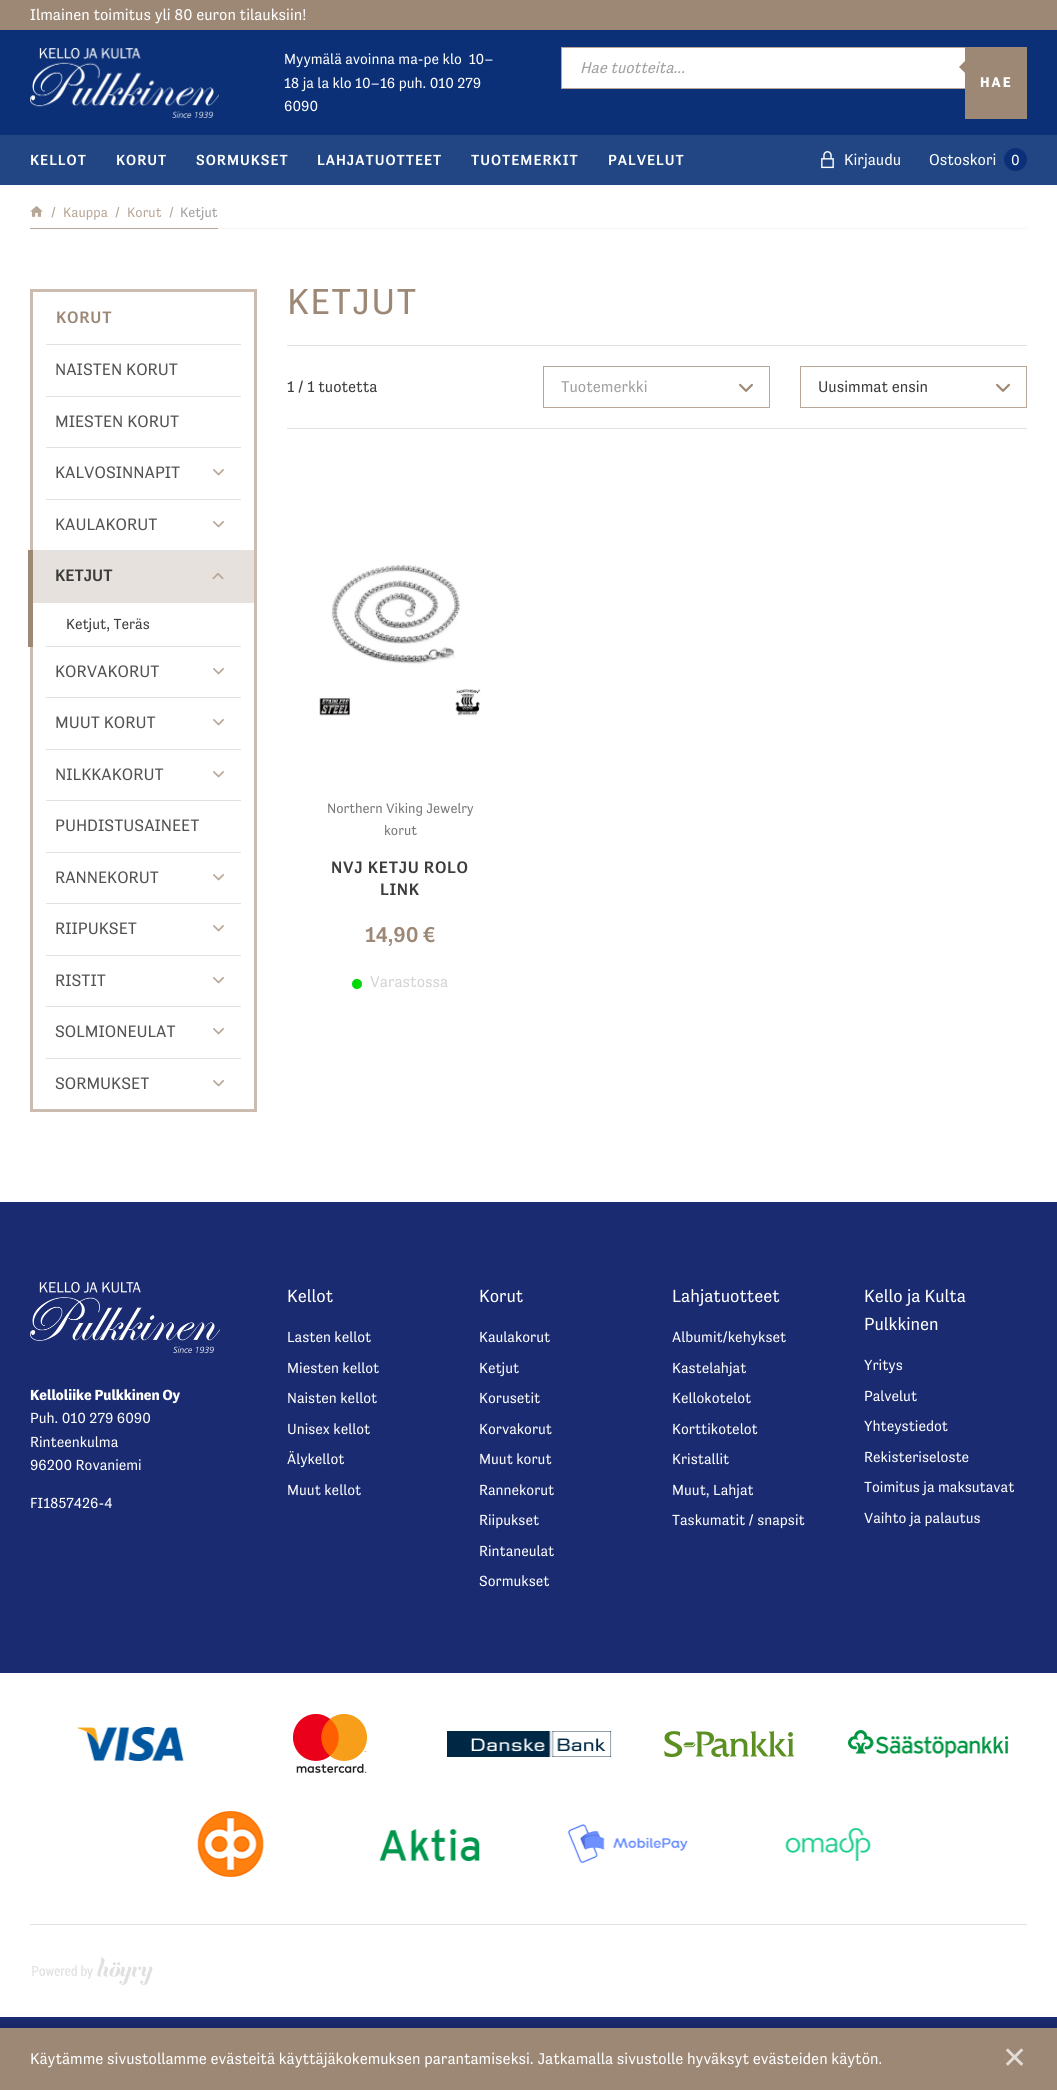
import math
import cairo


def write_spaced(ctx, x, y, s, letter, word):
	ctx.move_to(x, y)
	for ch in s:
		ctx.show_text(ch)
		ctx.rel_move_to(letter + word * (ch == ' '), 0)

def round_path(ctx, x, y, w, h, r):
	ctx.new_sub_path()
	for i, (u, v) in enumerate([(x + w - r, y + h - r), (x + r, y + h - r), (x + r, y + r), (x + w - r, y + r)]):
		ctx.arc(u, v, r, i * math.pi / 2, (i + 1) * math.pi / 2)
	ctx.close_path()

def blur_box(ctx, x, y, w, h, r, blur, alpha):
	ctx.push_group_with_content(cairo.CONTENT_ALPHA)
	ctx.set_operator(cairo.OPERATOR_SOURCE)
	for i in range(15, -16, -2):
		e = blur * i / 6
		if min(w, h) + 2 * e > 0:
			ctx.set_source_rgba(0, 0, 0, alpha * math.erfc((i - 1) / 8.5) / 2)
			round_path(ctx, x - e, y - e, w + 2 * e, h + 2 * e, max(0, min(r + e + blur * .6, min(w, h) / 2 + e)))
			ctx.fill()
	ctx.mask(ctx.pop_group())

def paste(ctx, path, x, y, w, h):
	ctx.save()
	ctx.set_source_surface(cairo.ImageSurface.create_from_png(path), x, y)
	ctx.rectangle(x, y, w, h)
	ctx.fill()
	ctx.restore()

def draw(ctx):
	ctx.set_source_rgb(0.102, 0.169, 0.443)
	ctx.paint()
	ctx.set_source_rgb(0.616, 0.533, 0.459)
	ctx.rectangle(0, 0, 1057, 30)
	ctx.fill()
	ctx.select_font_face('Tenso')
	ctx.set_font_size(16)
	ctx.set_source_rgb(1, 1, 1)
	ctx.move_to(30, 20)
	ctx.show_text('Ilmainen toimitus yli 80 euron tilauksiin!')
	ctx.set_source_rgb(0.043, 0.188, 0.467)
	ctx.rectangle(0, 30, 1057, 105)
	ctx.fill()
	paste(ctx, 'media/1.png', 30, 48, 189, 70)
	ctx.set_font_size(15)
	ctx.set_source_rgb(1, 1, 1)
	for x, y, s in [
		(284, 64, 'Myymälä avoinna ma-pe klo  10–'),
		(284, 88, '18 ja la klo 10–16 puh. 010 279'),
		(284, 111, '6090'),
	]:
		ctx.move_to(x, y)
		ctx.show_text(s)
	ctx.rectangle(562, 48, 403, 40)
	ctx.fill()
	ctx.rectangle(561.5, 47.5, 465, 41)
	ctx.set_source_rgb(0.722, 0.655, 0.592)
	ctx.set_line_width(1)
	ctx.stroke()
	ctx.select_font_face('Tenso', cairo.FONT_SLANT_ITALIC)
	ctx.set_font_size(16)
	ctx.set_source_rgb(0.631, 0.624, 0.624)
	ctx.move_to(580, 73)
	ctx.show_text('Hae tuotteita...')
	ctx.set_source_rgb(0.616, 0.533, 0.459)
	ctx.rectangle(965, 47, 62, 72)
	ctx.fill()
	ctx.new_path()
	ctx.move_to(967, 59)
	ctx.line_to(967, 75)
	ctx.line_to(959, 67)
	ctx.close_path()
	ctx.fill()
	ctx.select_font_face('Tenso', cairo.FONT_SLANT_NORMAL, cairo.FONT_WEIGHT_BOLD)
	ctx.set_font_size(14.5)
	ctx.set_source_rgb(1, 1, 1)
	write_spaced(ctx, 980, 87, 'HAE', 2, 0)
	ctx.set_source_rgb(0.129, 0.275, 0.514)
	ctx.rectangle(0, 135, 1057, 50)
	ctx.fill()
	ctx.select_font_face('Tenso Medium')
	ctx.set_font_size(15)
	ctx.set_source_rgb(1, 1, 1)
	for x, y, s in [
		(30, 165, 'KELLOT'),
		(116, 165, 'KORUT'),
		(196, 165, 'SORMUKSET'),
		(317, 165, 'LAHJATUOTTEET'),
		(471, 165, 'TUOTEMERKIT'),
		(608, 165, 'PALVELUT'),
	]:
		write_spaced(ctx, x, y, s, 1, 0)
	paste(ctx, 'media/2.png', 821, 151, 13, 18)
	ctx.select_font_face('Tenso')
	ctx.set_font_size(16)
	ctx.move_to(844, 165)
	ctx.show_text('Kirjaudu')
	ctx.move_to(929, 165)
	ctx.show_text('Ostoskori')
	ctx.set_source_rgb(0.043, 0.188, 0.467)
	ctx.new_path()
	ctx.arc(1015.5, 159.5, 11.5, 0, 2 * math.pi)
	ctx.fill()
	ctx.set_font_size(15)
	ctx.set_source_rgb(1, 1, 1)
	ctx.move_to(1011, 165)
	ctx.show_text('0')
	ctx.rectangle(0, 185, 1057, 1017)
	ctx.fill()
	ctx.set_source_rgb(0.961, 0.953, 0.945)
	ctx.rectangle(218, 228, 809, 1)
	ctx.fill()
	ctx.set_source_rgb(0.722, 0.655, 0.592)
	ctx.rectangle(30, 228, 188, 1)
	ctx.fill()
	paste(ctx, 'media/3.png', 30, 206, 13, 11)
	ctx.set_font_size(14)
	for x, y, s in [
		(51, 217, '/'),
		(63, 217, 'Kauppa'),
		(115, 217, '/'),
		(127, 217, 'Korut'),
		(169, 217, '/'),
	]:
		ctx.move_to(x, y)
		ctx.show_text(s)
	ctx.set_source_rgb(0.631, 0.624, 0.624)
	ctx.move_to(180, 217)
	ctx.show_text('Ketjut')
	ctx.rectangle(31.5, 290.5, 224, 820)
	ctx.set_source_rgb(0.792, 0.737, 0.682)
	ctx.set_line_width(3)
	ctx.stroke()
	ctx.select_font_face('Tenso Medium')
	ctx.set_font_size(17)
	ctx.set_source_rgb(0.616, 0.533, 0.459)
	write_spaced(ctx, 56, 323, 'KORUT', 0.75, 0)
	ctx.set_source_rgb(0.878, 0.878, 0.878)
	ctx.rectangle(46, 344, 195, 1)
	ctx.fill()
	ctx.select_font_face('Tenso')
	ctx.set_source_rgb(0.322, 0.322, 0.322)
	ctx.move_to(55, 375)
	ctx.show_text('NAISTEN KORUT')
	ctx.set_source_rgb(0.878, 0.878, 0.878)
	ctx.rectangle(46, 396, 195, 1)
	ctx.fill()
	ctx.set_source_rgb(0.322, 0.322, 0.322)
	ctx.move_to(55, 427)
	ctx.show_text('MIESTEN KORUT')
	ctx.set_source_rgb(0.878, 0.878, 0.878)
	ctx.rectangle(46, 447, 195, 1)
	ctx.fill()
	ctx.set_source_rgb(0.322, 0.322, 0.322)
	ctx.move_to(55, 478)
	ctx.show_text('KALVOSINNAPIT')
	paste(ctx, 'media/4.png', 213, 469, 11, 7)
	ctx.set_source_rgb(0.878, 0.878, 0.878)
	ctx.rectangle(46, 499, 195, 1)
	ctx.fill()
	ctx.set_source_rgb(0.322, 0.322, 0.322)
	ctx.move_to(55, 530)
	ctx.show_text('KAULAKORUT')
	paste(ctx, 'media/4.png', 213, 521, 11, 7)
	ctx.set_source_rgb(0.616, 0.533, 0.459)
	ctx.rectangle(28, 550, 5, 97)
	ctx.fill()
	ctx.set_source_rgb(0.902, 0.882, 0.863)
	ctx.rectangle(33, 550, 221, 53)
	ctx.fill()
	ctx.set_source_rgb(0.878, 0.878, 0.878)
	ctx.rectangle(46, 550, 195, 1)
	ctx.fill()
	ctx.select_font_face('Tenso Medium')
	ctx.set_source_rgb(0.235, 0.235, 0.235)
	ctx.move_to(55, 581)
	ctx.show_text('KETJUT')
	paste(ctx, 'media/5.png', 212, 573, 12, 7)
	ctx.set_source_rgb(0.878, 0.878, 0.878)
	ctx.rectangle(46, 602, 195, 1)
	ctx.fill()
	ctx.select_font_face('Tenso')
	ctx.set_font_size(15)
	ctx.set_source_rgb(0.235, 0.235, 0.235)
	ctx.move_to(66, 629)
	ctx.show_text('Ketjut, Teräs')
	ctx.set_source_rgb(0.878, 0.878, 0.878)
	ctx.rectangle(46, 646, 195, 1)
	ctx.fill()
	ctx.set_font_size(17)
	ctx.set_source_rgb(0.322, 0.322, 0.322)
	ctx.move_to(55, 677)
	ctx.show_text('KORVAKORUT')
	paste(ctx, 'media/4.png', 213, 668, 11, 7)
	ctx.set_source_rgb(0.878, 0.878, 0.878)
	ctx.rectangle(46, 697, 195, 1)
	ctx.fill()
	ctx.set_source_rgb(0.322, 0.322, 0.322)
	ctx.move_to(55, 728)
	ctx.show_text('MUUT KORUT')
	paste(ctx, 'media/4.png', 213, 719, 11, 7)
	ctx.set_source_rgb(0.878, 0.878, 0.878)
	ctx.rectangle(46, 749, 195, 1)
	ctx.fill()
	ctx.set_source_rgb(0.322, 0.322, 0.322)
	ctx.move_to(55, 780)
	ctx.show_text('NILKKAKORUT')
	paste(ctx, 'media/4.png', 213, 771, 11, 7)
	ctx.set_source_rgb(0.878, 0.878, 0.878)
	ctx.rectangle(46, 800, 195, 1)
	ctx.fill()
	ctx.set_source_rgb(0.322, 0.322, 0.322)
	ctx.move_to(55, 831)
	ctx.show_text('PUHDISTUSAINEET')
	ctx.set_source_rgb(0.878, 0.878, 0.878)
	ctx.rectangle(46, 852, 195, 1)
	ctx.fill()
	ctx.set_source_rgb(0.322, 0.322, 0.322)
	ctx.move_to(55, 883)
	ctx.show_text('RANNEKORUT')
	paste(ctx, 'media/4.png', 213, 874, 11, 7)
	ctx.set_source_rgb(0.878, 0.878, 0.878)
	ctx.rectangle(46, 903, 195, 1)
	ctx.fill()
	ctx.set_source_rgb(0.322, 0.322, 0.322)
	ctx.move_to(55, 934)
	ctx.show_text('RIIPUKSET')
	paste(ctx, 'media/4.png', 213, 925, 11, 7)
	ctx.set_source_rgb(0.878, 0.878, 0.878)
	ctx.rectangle(46, 955, 195, 1)
	ctx.fill()
	ctx.set_source_rgb(0.322, 0.322, 0.322)
	ctx.move_to(55, 986)
	ctx.show_text('RISTIT')
	paste(ctx, 'media/4.png', 213, 977, 11, 7)
	ctx.set_source_rgb(0.878, 0.878, 0.878)
	ctx.rectangle(46, 1006, 195, 1)
	ctx.fill()
	ctx.set_source_rgb(0.322, 0.322, 0.322)
	ctx.move_to(55, 1037)
	ctx.show_text('SOLMIONEULAT')
	paste(ctx, 'media/4.png', 213, 1028, 11, 7)
	ctx.set_source_rgb(0.878, 0.878, 0.878)
	ctx.rectangle(46, 1058, 195, 1)
	ctx.fill()
	ctx.set_source_rgb(0.322, 0.322, 0.322)
	ctx.move_to(55, 1089)
	ctx.show_text('SORMUKSET')
	paste(ctx, 'media/4.png', 213, 1080, 11, 7)
	ctx.set_font_size(37)
	ctx.set_source_rgb(0.616, 0.533, 0.459)
	write_spaced(ctx, 287, 314, 'KETJUT', 1.25, 0)
	ctx.set_source_rgb(0.878, 0.878, 0.878)
	ctx.rectangle(287, 345, 740, 1)
	ctx.fill()
	ctx.set_font_size(16)
	ctx.set_source_rgb(0.235, 0.235, 0.235)
	ctx.move_to(287, 392)
	ctx.show_text('1 / 1 tuotetta')
	ctx.rectangle(543.5, 366.5, 226, 41)
	ctx.set_source_rgb(0.722, 0.655, 0.592)
	ctx.set_line_width(1)
	ctx.stroke()
	ctx.set_source_rgb(0.631, 0.624, 0.624)
	ctx.move_to(561, 392)
	ctx.show_text('Tuotemerkki')
	paste(ctx, 'media/6.png', 739, 383, 14, 9)
	ctx.rectangle(800.5, 366.5, 226, 41)
	ctx.set_source_rgb(0.722, 0.655, 0.592)
	ctx.stroke()
	ctx.set_source_rgb(0.235, 0.235, 0.235)
	ctx.move_to(818, 392)
	ctx.show_text('Uusimmat ensin')
	paste(ctx, 'media/6.png', 996, 383, 14, 9)
	ctx.set_source_rgb(0.878, 0.878, 0.878)
	ctx.rectangle(287, 428, 740, 1)
	ctx.fill()
	paste(ctx, 'media/7.png', 319, 564, 162, 152)
	ctx.set_font_size(14)
	ctx.set_source_rgb(0.467, 0.467, 0.467)
	ctx.move_to(327, 813)
	ctx.show_text('Northern Viking Jewelry')
	ctx.move_to(384, 835)
	ctx.show_text('korut')
	ctx.select_font_face('Tenso Medium')
	ctx.set_font_size(17)
	ctx.set_source_rgb(0.235, 0.235, 0.235)
	write_spaced(ctx, 331, 873, 'NVJ KETJU ROLO', 0.75, 0)
	write_spaced(ctx, 380, 895, 'LINK', 0.75, 0)
	ctx.set_font_size(22)
	ctx.set_source_rgb(0.616, 0.533, 0.459)
	ctx.move_to(365, 942)
	ctx.show_text('14,90 €')
	ctx.set_source_rgb(0, 0.855, 0)
	ctx.new_path()
	ctx.arc(357, 984, 5, 0, 2 * math.pi)
	ctx.fill()
	ctx.select_font_face('Tenso')
	ctx.set_font_size(16)
	ctx.set_source_rgb(0.827, 0.827, 0.827)
	ctx.move_to(370, 987)
	ctx.show_text('Varastossa')
	paste(ctx, 'media/8.png', 30, 1282, 190, 71)
	ctx.select_font_face('Tenso', cairo.FONT_SLANT_NORMAL, cairo.FONT_WEIGHT_BOLD)
	ctx.set_font_size(15)
	ctx.set_source_rgb(1, 1, 1)
	ctx.move_to(30, 1400)
	ctx.show_text('Kelloliike Pulkkinen Oy')
	ctx.select_font_face('Tenso')
	for x, y, s in [
		(30, 1423, 'Puh. 010 279 6090'),
		(30, 1447, 'Rinteenkulma'),
		(30, 1470, '96200 Rovaniemi'),
		(30, 1508, 'FI1857426-4'),
	]:
		ctx.move_to(x, y)
		ctx.show_text(s)
	ctx.set_font_size(18)
	ctx.move_to(287, 1302)
	ctx.show_text('Kellot')
	ctx.set_font_size(15)
	for x, y, s in [
		(287, 1342, 'Lasten kellot'),
		(287, 1373, 'Miesten kellot'),
		(287, 1403, 'Naisten kellot'),
		(287, 1434, 'Unisex kellot'),
		(287, 1464, 'Älykellot'),
		(287, 1495, 'Muut kellot'),
	]:
		ctx.move_to(x, y)
		ctx.show_text(s)
	ctx.set_font_size(18)
	ctx.move_to(479, 1302)
	ctx.show_text('Korut')
	ctx.set_font_size(15)
	for x, y, s in [
		(479, 1342, 'Kaulakorut'),
		(479, 1373, 'Ketjut'),
		(479, 1403, 'Korusetit'),
		(479, 1434, 'Korvakorut'),
		(479, 1464, 'Muut korut'),
		(479, 1495, 'Rannekorut'),
		(479, 1525, 'Riipukset'),
		(479, 1556, 'Rintaneulat'),
		(479, 1586, 'Sormukset'),
	]:
		ctx.move_to(x, y)
		ctx.show_text(s)
	ctx.set_font_size(18)
	ctx.move_to(672, 1302)
	ctx.show_text('Lahjatuotteet')
	ctx.set_font_size(15)
	for x, y, s in [
		(672, 1342, 'Albumit/kehykset'),
		(672, 1373, 'Kastelahjat'),
		(672, 1403, 'Kellokotelot'),
		(672, 1434, 'Korttikotelot'),
		(672, 1464, 'Kristallit'),
		(672, 1495, 'Muut, Lahjat'),
		(672, 1525, 'Taskumatit / snapsit'),
	]:
		ctx.move_to(x, y)
		ctx.show_text(s)
	ctx.set_font_size(18)
	ctx.move_to(864, 1302)
	ctx.show_text('Kello ja Kulta')
	ctx.move_to(864, 1330)
	ctx.show_text('Pulkkinen')
	ctx.set_font_size(15)
	for x, y, s in [
		(864, 1370, 'Yritys'),
		(864, 1401, 'Palvelut'),
		(864, 1431, 'Yhteystiedot'),
		(864, 1462, 'Rekisteriseloste'),
		(864, 1492, 'Toimitus ja maksutavat'),
		(864, 1523, 'Vaihto ja palautus'),
	]:
		ctx.move_to(x, y)
		ctx.show_text(s)
	ctx.rectangle(0, 1673, 1057, 344)
	ctx.fill()
	paste(ctx, 'media/9.png', 77, 1727, 107, 34)
	paste(ctx, 'media/10.png', 293, 1714, 74, 59)
	paste(ctx, 'media/11.png', 447, 1731, 165, 26)
	paste(ctx, 'media/12.png', 664, 1731, 130, 26)
	paste(ctx, 'media/13.png', 848, 1730, 161, 28)
	paste(ctx, 'media/14.png', 197, 1811, 67, 66)
	paste(ctx, 'media/15.png', 379, 1829, 101, 32)
	paste(ctx, 'media/16.png', 567, 1824, 121, 39)
	paste(ctx, 'media/17.png', 785, 1828, 86, 33)
	ctx.set_source_rgb(0.878, 0.878, 0.878)
	ctx.rectangle(30, 1924, 997, 1)
	ctx.fill()
	paste(ctx, 'media/18.png', 32, 1957, 121, 28)
	ctx.set_source_rgb(0, 0, 0)
	blur_box(ctx, 0, 2028, 1057, 62, 0, 7.5, 0.2)
	ctx.set_source_rgb(0.616, 0.533, 0.459)
	ctx.rectangle(0, 2028, 1057, 62)
	ctx.fill()
	ctx.set_font_size(16)
	ctx.set_source_rgb(1, 1, 1)
	ctx.move_to(30, 2064)
	ctx.show_text('Käytämme sivustollamme evästeitä käyttäjäkokemuksen parantamiseksi. Jatkamalla sivustolle hyväksyt evästeiden käytön.')
	ctx.select_font_face('DejaVu Sans')
	ctx.set_font_size(30)
	ctx.set_source_rgb(0.886, 0.859, 0.839)
	ctx.move_to(1002, 2068)
	ctx.show_text('✕')


surface = cairo.ImageSurface(cairo.FORMAT_RGB24, 1057, 2090)
ctx = cairo.Context(surface)
options = cairo.FontOptions()
options.set_hint_metrics(cairo.HINT_METRICS_OFF)
options.set_hint_style(cairo.HINT_STYLE_NONE)
ctx.set_font_options(options)
ctx.set_miter_limit(4)
draw(ctx)
surface.write_to_png('image.png')
